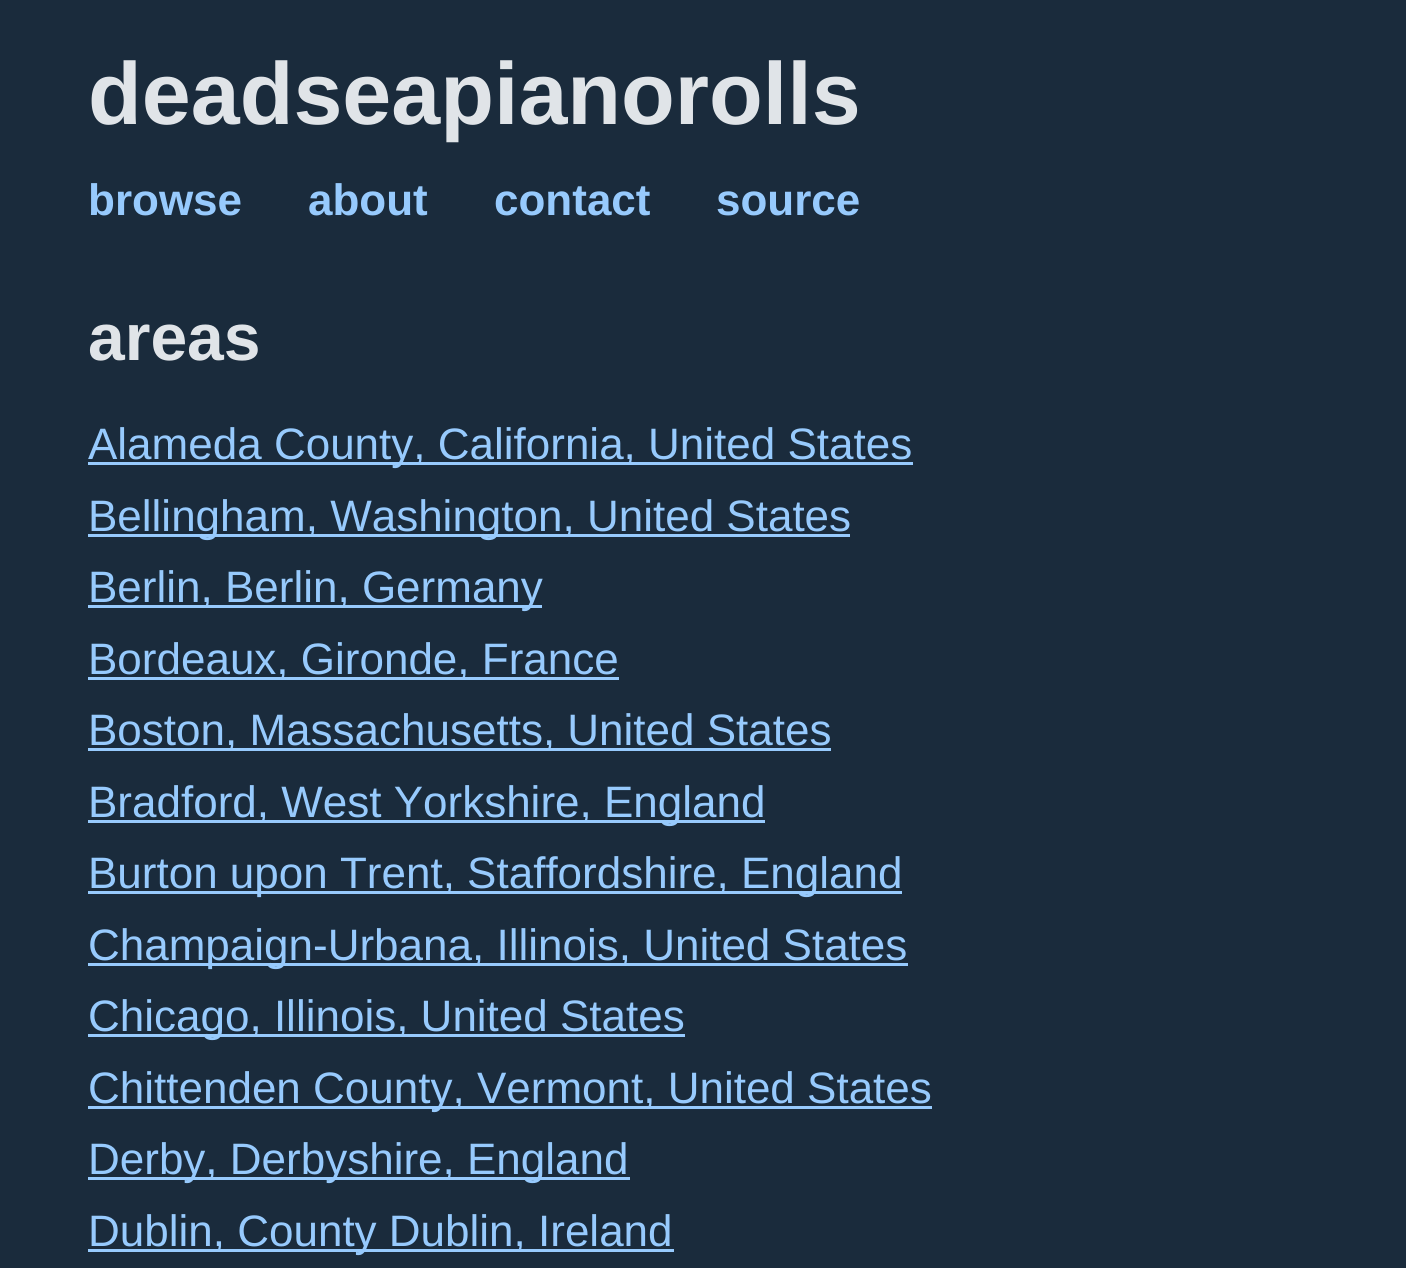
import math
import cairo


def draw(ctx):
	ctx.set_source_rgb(0.102, 0.169, 0.235)
	ctx.paint()
	ctx.select_font_face('Liberation Sans', cairo.FONT_SLANT_NORMAL, cairo.FONT_WEIGHT_BOLD)
	ctx.set_font_size(88)
	ctx.set_source_rgb(0.878, 0.894, 0.91)
	ctx.move_to(88, 124)
	ctx.show_text('deadseapianorolls')
	ctx.set_font_size(44)
	ctx.set_source_rgb(0.592, 0.792, 0.992)
	for x, y, s in [
		(88, 215, 'browse'),
		(308, 215, 'about'),
		(494, 215, 'contact'),
		(716, 215, 'source'),
	]:
		ctx.move_to(x, y)
		ctx.show_text(s)
	ctx.set_font_size(66)
	ctx.set_source_rgb(0.878, 0.894, 0.91)
	ctx.move_to(88, 360)
	ctx.show_text('areas')
	ctx.set_source_rgb(0.592, 0.792, 0.992)
	ctx.rectangle(88, 462, 825, 3)
	ctx.fill()
	ctx.select_font_face('Liberation Sans')
	ctx.set_font_size(44)
	ctx.move_to(88, 459)
	ctx.show_text('Alameda County, California, United States')
	ctx.rectangle(88, 534, 762, 3)
	ctx.fill()
	ctx.move_to(88, 531)
	ctx.show_text('Bellingham, Washington, United States')
	ctx.rectangle(88, 605, 454, 3)
	ctx.fill()
	ctx.move_to(88, 602)
	ctx.show_text('Berlin, Berlin, Germany')
	ctx.rectangle(88, 677, 531, 3)
	ctx.fill()
	ctx.move_to(88, 674)
	ctx.show_text('Bordeaux, Gironde, France')
	ctx.rectangle(88, 748, 743, 3)
	ctx.fill()
	ctx.move_to(88, 745)
	ctx.show_text('Boston, Massachusetts, United States')
	ctx.rectangle(88, 820, 677, 3)
	ctx.fill()
	ctx.move_to(88, 817)
	ctx.show_text('Bradford, West Yorkshire, England')
	ctx.rectangle(88, 891, 814, 3)
	ctx.fill()
	ctx.move_to(88, 888)
	ctx.show_text('Burton upon Trent, Staffordshire, England')
	ctx.rectangle(88, 963, 820, 3)
	ctx.fill()
	ctx.move_to(88, 960)
	ctx.show_text('Champaign-Urbana, Illinois, United States')
	ctx.rectangle(88, 1034, 597, 3)
	ctx.fill()
	ctx.move_to(88, 1031)
	ctx.show_text('Chicago, Illinois, United States')
	ctx.rectangle(88, 1106, 844, 3)
	ctx.fill()
	ctx.move_to(88, 1103)
	ctx.show_text('Chittenden County, Vermont, United States')
	ctx.rectangle(88, 1177, 542, 3)
	ctx.fill()
	ctx.move_to(88, 1174)
	ctx.show_text('Derby, Derbyshire, England')
	ctx.rectangle(88, 1249, 586, 3)
	ctx.fill()
	ctx.move_to(88, 1246)
	ctx.show_text('Dublin, County Dublin, Ireland')


surface = cairo.ImageSurface(cairo.FORMAT_RGB24, 1406, 1268)
ctx = cairo.Context(surface)
options = cairo.FontOptions()
options.set_hint_metrics(cairo.HINT_METRICS_OFF)
options.set_hint_style(cairo.HINT_STYLE_NONE)
ctx.set_font_options(options)
ctx.set_miter_limit(4)
draw(ctx)
surface.write_to_png('image.png')
